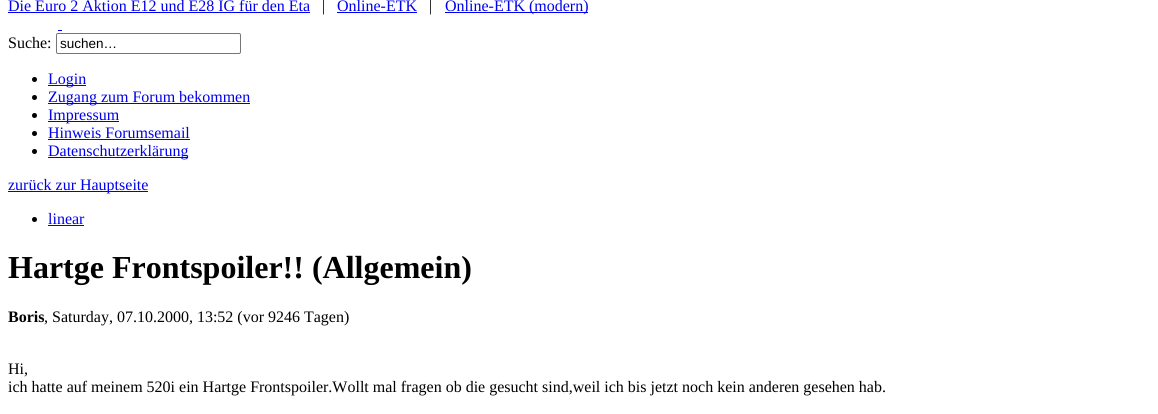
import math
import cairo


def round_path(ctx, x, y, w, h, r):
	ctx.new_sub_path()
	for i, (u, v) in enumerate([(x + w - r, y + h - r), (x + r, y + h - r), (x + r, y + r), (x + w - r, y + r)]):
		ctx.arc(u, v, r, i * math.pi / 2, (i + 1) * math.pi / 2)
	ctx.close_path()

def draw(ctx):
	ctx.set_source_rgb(1, 1, 1)
	ctx.paint()
	ctx.select_font_face('Liberation Serif')
	ctx.set_font_size(16)
	ctx.set_source_rgb(0, 0, 0.933)
	ctx.move_to(8, 11)
	ctx.show_text('Die Euro 2 Aktion E12 und E28 IG für den Eta')
	ctx.rectangle(8, 12, 302, 1)
	ctx.fill()
	ctx.set_source_rgb(0, 0, 0)
	ctx.move_to(322, 11)
	ctx.show_text('|')
	ctx.set_source_rgb(0, 0, 0.933)
	ctx.move_to(337, 11)
	ctx.show_text('Online-ETK')
	ctx.rectangle(337, 12, 80, 1)
	ctx.fill()
	ctx.set_source_rgb(0, 0, 0)
	ctx.move_to(429, 11)
	ctx.show_text('|')
	ctx.set_source_rgb(0, 0, 0.933)
	ctx.rectangle(445, 12, 143, 1)
	ctx.fill()
	ctx.move_to(445, 11)
	ctx.show_text('Online-ETK (modern)')
	ctx.rectangle(58, 30, 4, 1)
	ctx.fill()
	ctx.set_source_rgb(0, 0, 0)
	ctx.move_to(8, 48)
	ctx.show_text('Suche:')
	round_path(ctx, 56.5, 33.5, 184, 20, 1.5)
	ctx.set_source_rgb(0.463, 0.463, 0.463)
	ctx.set_line_width(1)
	ctx.stroke()
	ctx.select_font_face('Liberation Sans')
	ctx.set_font_size(13.5)
	ctx.set_source_rgb(0, 0, 0)
	ctx.move_to(60, 48)
	ctx.show_text('suchen…')
	ctx.new_path()
	ctx.arc(34.5, 79.5, 2.5, 0, 2 * math.pi)
	ctx.fill()
	ctx.set_source_rgb(0, 0, 0.933)
	ctx.rectangle(48, 85, 38, 1)
	ctx.fill()
	ctx.select_font_face('Liberation Serif')
	ctx.set_font_size(16)
	ctx.move_to(48, 84)
	ctx.show_text('Login')
	ctx.set_source_rgb(0, 0, 0)
	ctx.new_path()
	ctx.arc(34.5, 97.5, 2.5, 0, 2 * math.pi)
	ctx.fill()
	ctx.set_source_rgb(0, 0, 0.933)
	ctx.rectangle(48, 103, 202, 1)
	ctx.fill()
	ctx.move_to(48, 102)
	ctx.show_text('Zugang zum Forum bekommen')
	ctx.set_source_rgb(0, 0, 0)
	ctx.new_path()
	ctx.arc(34.5, 115.5, 2.5, 0, 2 * math.pi)
	ctx.fill()
	ctx.set_source_rgb(0, 0, 0.933)
	ctx.rectangle(48, 121, 71, 1)
	ctx.fill()
	ctx.move_to(48, 120)
	ctx.show_text('Impressum')
	ctx.set_source_rgb(0, 0, 0)
	ctx.new_path()
	ctx.arc(34.5, 133.5, 2.5, 0, 2 * math.pi)
	ctx.fill()
	ctx.set_source_rgb(0, 0, 0.933)
	ctx.move_to(48, 138)
	ctx.show_text('Hinweis Forumsemail')
	ctx.rectangle(48, 139, 142, 1)
	ctx.fill()
	ctx.set_source_rgb(0, 0, 0)
	ctx.arc(34.5, 151.5, 2.5, 0, 2 * math.pi)
	ctx.fill()
	ctx.set_source_rgb(0, 0, 0.933)
	ctx.rectangle(48, 157, 140, 1)
	ctx.fill()
	ctx.move_to(48, 156)
	ctx.show_text('Datenschutzerklärung')
	ctx.rectangle(8, 191, 140, 1)
	ctx.fill()
	ctx.move_to(8, 190)
	ctx.show_text('zurück zur Hauptseite')
	ctx.set_source_rgb(0, 0, 0)
	ctx.new_path()
	ctx.arc(34.5, 219.5, 2.5, 0, 2 * math.pi)
	ctx.fill()
	ctx.set_source_rgb(0, 0, 0.933)
	ctx.move_to(48, 224)
	ctx.show_text('linear')
	ctx.rectangle(48, 225, 36, 1)
	ctx.fill()
	ctx.select_font_face('Liberation Serif', cairo.FONT_SLANT_NORMAL, cairo.FONT_WEIGHT_BOLD)
	ctx.set_font_size(32)
	ctx.set_source_rgb(0, 0, 0)
	ctx.move_to(8, 278)
	ctx.show_text('Hartge Frontspoiler!! (Allgemein)')
	ctx.set_font_size(16)
	ctx.move_to(8, 322)
	ctx.show_text('Boris')
	ctx.select_font_face('Liberation Serif')
	for x, y, s in [
		(44, 322, ', Saturday, 07.10.2000, 13:52 (vor 9246 Tagen)'),
		(8, 374, 'Hi,'),
		(8, 392, 'ich hatte auf meinem 520i ein Hartge Frontspoiler.Wollt mal fragen ob die gesucht sind,weil ich bis jetzt noch kein anderen gesehen hab.'),
	]:
		ctx.move_to(x, y)
		ctx.show_text(s)


surface = cairo.ImageSurface(cairo.FORMAT_RGB24, 1158, 414)
ctx = cairo.Context(surface)
options = cairo.FontOptions()
options.set_hint_metrics(cairo.HINT_METRICS_OFF)
options.set_hint_style(cairo.HINT_STYLE_NONE)
ctx.set_font_options(options)
ctx.set_miter_limit(4)
draw(ctx)
surface.write_to_png('image.png')
